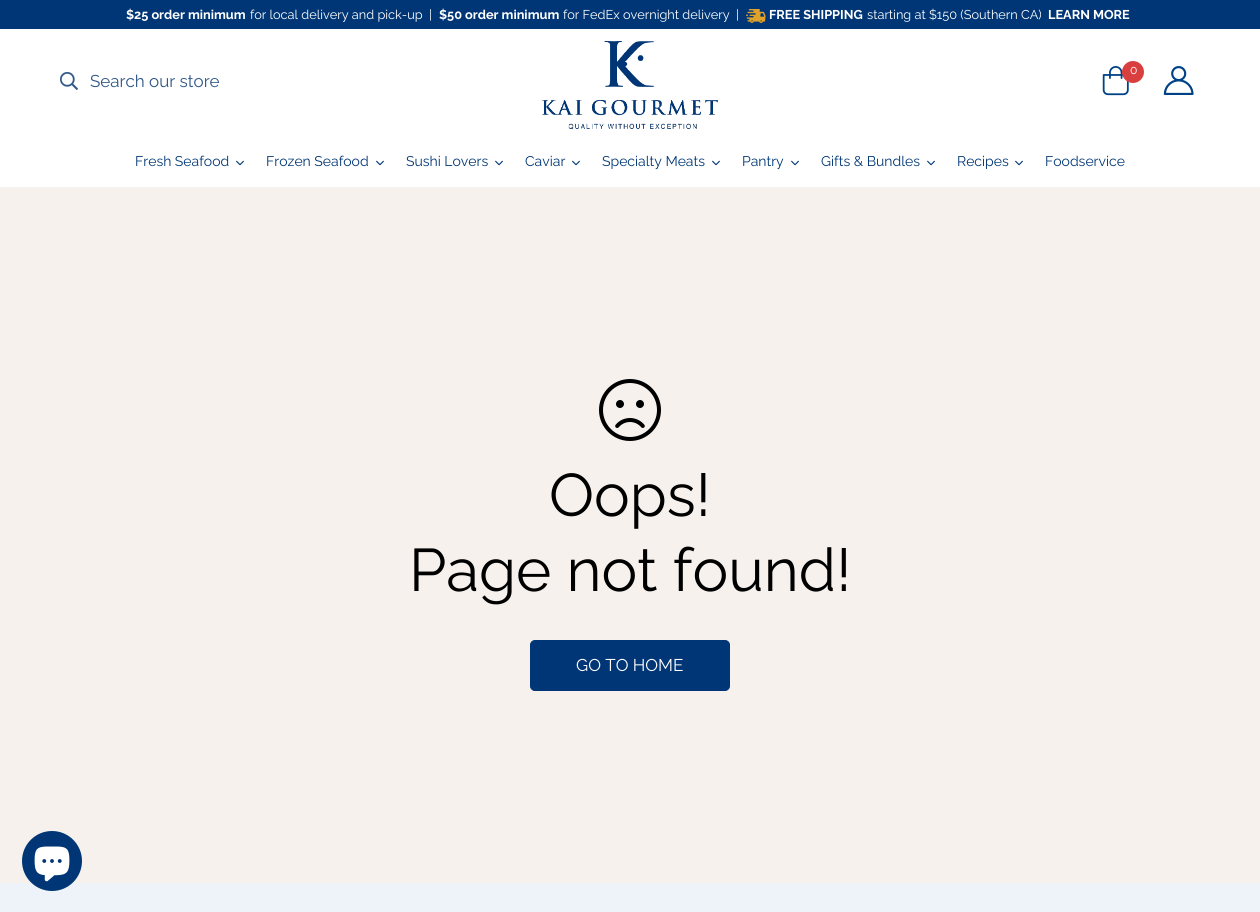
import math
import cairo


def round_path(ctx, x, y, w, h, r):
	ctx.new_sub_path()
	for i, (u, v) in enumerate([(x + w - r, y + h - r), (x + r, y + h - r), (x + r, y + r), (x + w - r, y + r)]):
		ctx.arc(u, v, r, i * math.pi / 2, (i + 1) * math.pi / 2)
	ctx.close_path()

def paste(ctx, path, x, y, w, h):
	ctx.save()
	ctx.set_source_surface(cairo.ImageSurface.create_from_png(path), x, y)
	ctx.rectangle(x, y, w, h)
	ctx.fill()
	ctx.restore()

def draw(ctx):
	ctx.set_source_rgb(0.961, 0.945, 0.929)
	ctx.paint()
	ctx.set_source_rgb(0, 0.212, 0.459)
	ctx.rectangle(0, 0, 1260, 29)
	ctx.fill()
	ctx.select_font_face('Raleway', cairo.FONT_SLANT_NORMAL, cairo.FONT_WEIGHT_BOLD)
	ctx.set_font_size(12.75)
	ctx.set_source_rgb(1, 1, 1)
	ctx.move_to(126, 19)
	ctx.show_text('$25 order minimum')
	ctx.select_font_face('Raleway Thin')
	ctx.move_to(250, 19)
	ctx.show_text('for local delivery and pick-up  |')
	ctx.select_font_face('Raleway', cairo.FONT_SLANT_NORMAL, cairo.FONT_WEIGHT_BOLD)
	ctx.move_to(439, 19)
	ctx.show_text('$50 order minimum')
	ctx.select_font_face('Raleway Thin')
	ctx.move_to(563, 19)
	ctx.show_text('for FedEx overnight delivery  |')
	paste(ctx, 'media/1.png', 746, 9, 20, 14)
	ctx.select_font_face('Raleway', cairo.FONT_SLANT_NORMAL, cairo.FONT_WEIGHT_BOLD)
	ctx.move_to(769, 19)
	ctx.show_text('FREE SHIPPING')
	ctx.select_font_face('Raleway Thin')
	ctx.move_to(867, 19)
	ctx.show_text('starting at $150 (Southern CA)')
	ctx.select_font_face('Raleway', cairo.FONT_SLANT_NORMAL, cairo.FONT_WEIGHT_BOLD)
	ctx.move_to(1048, 19)
	ctx.show_text('LEARN MORE')
	ctx.rectangle(0, 29, 1260, 158)
	ctx.fill()
	paste(ctx, 'media/2.png', 542, 41, 176, 89)
	paste(ctx, 'media/3.png', 1102, 66, 27, 30)
	ctx.set_source_rgb(0.855, 0.247, 0.247)
	ctx.arc(1133, 72, 11, 0, 2 * math.pi)
	ctx.fill()
	ctx.select_font_face('Raleway Thin')
	ctx.set_font_size(12)
	ctx.set_source_rgb(1, 1, 1)
	ctx.move_to(1130, 74)
	ctx.show_text('0')
	paste(ctx, 'media/4.png', 1163, 66, 31, 29)
	paste(ctx, 'media/5.png', 60, 71, 18, 19)
	ctx.set_font_size(17)
	ctx.set_source_rgb(0.184, 0.341, 0.529)
	ctx.move_to(90, 87)
	ctx.show_text('Search our store')
	ctx.set_font_size(14)
	ctx.set_source_rgb(0, 0.212, 0.459)
	ctx.move_to(135, 166)
	ctx.show_text('Fresh Seafood')
	paste(ctx, 'media/6.png', 236, 160, 8, 6)
	ctx.move_to(266, 166)
	ctx.show_text('Frozen Seafood')
	paste(ctx, 'media/6.png', 376, 160, 8, 6)
	ctx.move_to(406, 166)
	ctx.show_text('Sushi Lovers')
	paste(ctx, 'media/6.png', 495, 160, 8, 6)
	ctx.move_to(525, 166)
	ctx.show_text('Caviar')
	paste(ctx, 'media/6.png', 572, 160, 8, 6)
	ctx.move_to(602, 166)
	ctx.show_text('Specialty Meats')
	paste(ctx, 'media/6.png', 712, 160, 8, 6)
	ctx.move_to(742, 166)
	ctx.show_text('Pantry')
	paste(ctx, 'media/6.png', 791, 160, 8, 6)
	ctx.move_to(821, 166)
	ctx.show_text('Gifts & Bundles')
	paste(ctx, 'media/6.png', 927, 160, 8, 6)
	ctx.move_to(957, 166)
	ctx.show_text('Recipes')
	paste(ctx, 'media/6.png', 1015, 160, 8, 6)
	ctx.move_to(1045, 166)
	ctx.show_text('Foodservice')
	paste(ctx, 'media/7.png', 599, 379, 62, 62)
	ctx.set_font_size(60)
	ctx.set_source_rgb(0, 0, 0)
	ctx.move_to(549, 516)
	ctx.show_text('Oops!')
	ctx.move_to(409, 591)
	ctx.show_text('Page not found!')
	ctx.set_source_rgb(0, 0.212, 0.459)
	round_path(ctx, 530.5, 640.5, 199, 50, 4.5)
	ctx.fill_preserve()
	ctx.set_line_width(1)
	ctx.stroke()
	ctx.set_font_size(17)
	ctx.set_source_rgb(1, 1, 1)
	ctx.move_to(576, 671)
	ctx.show_text('GO TO HOME')
	ctx.set_source_rgb(0.933, 0.953, 0.976)
	ctx.rectangle(0, 883, 1260, 29)
	ctx.fill()
	ctx.set_source_rgb(0, 0.212, 0.459)
	ctx.arc(52, 861, 30, 0, 2 * math.pi)
	ctx.fill()
	paste(ctx, 'media/8.png', 34, 846, 36, 36)


surface = cairo.ImageSurface(cairo.FORMAT_RGB24, 1260, 912)
ctx = cairo.Context(surface)
options = cairo.FontOptions()
options.set_hint_metrics(cairo.HINT_METRICS_OFF)
options.set_hint_style(cairo.HINT_STYLE_NONE)
ctx.set_font_options(options)
ctx.set_miter_limit(4)
draw(ctx)
surface.write_to_png('image.png')
